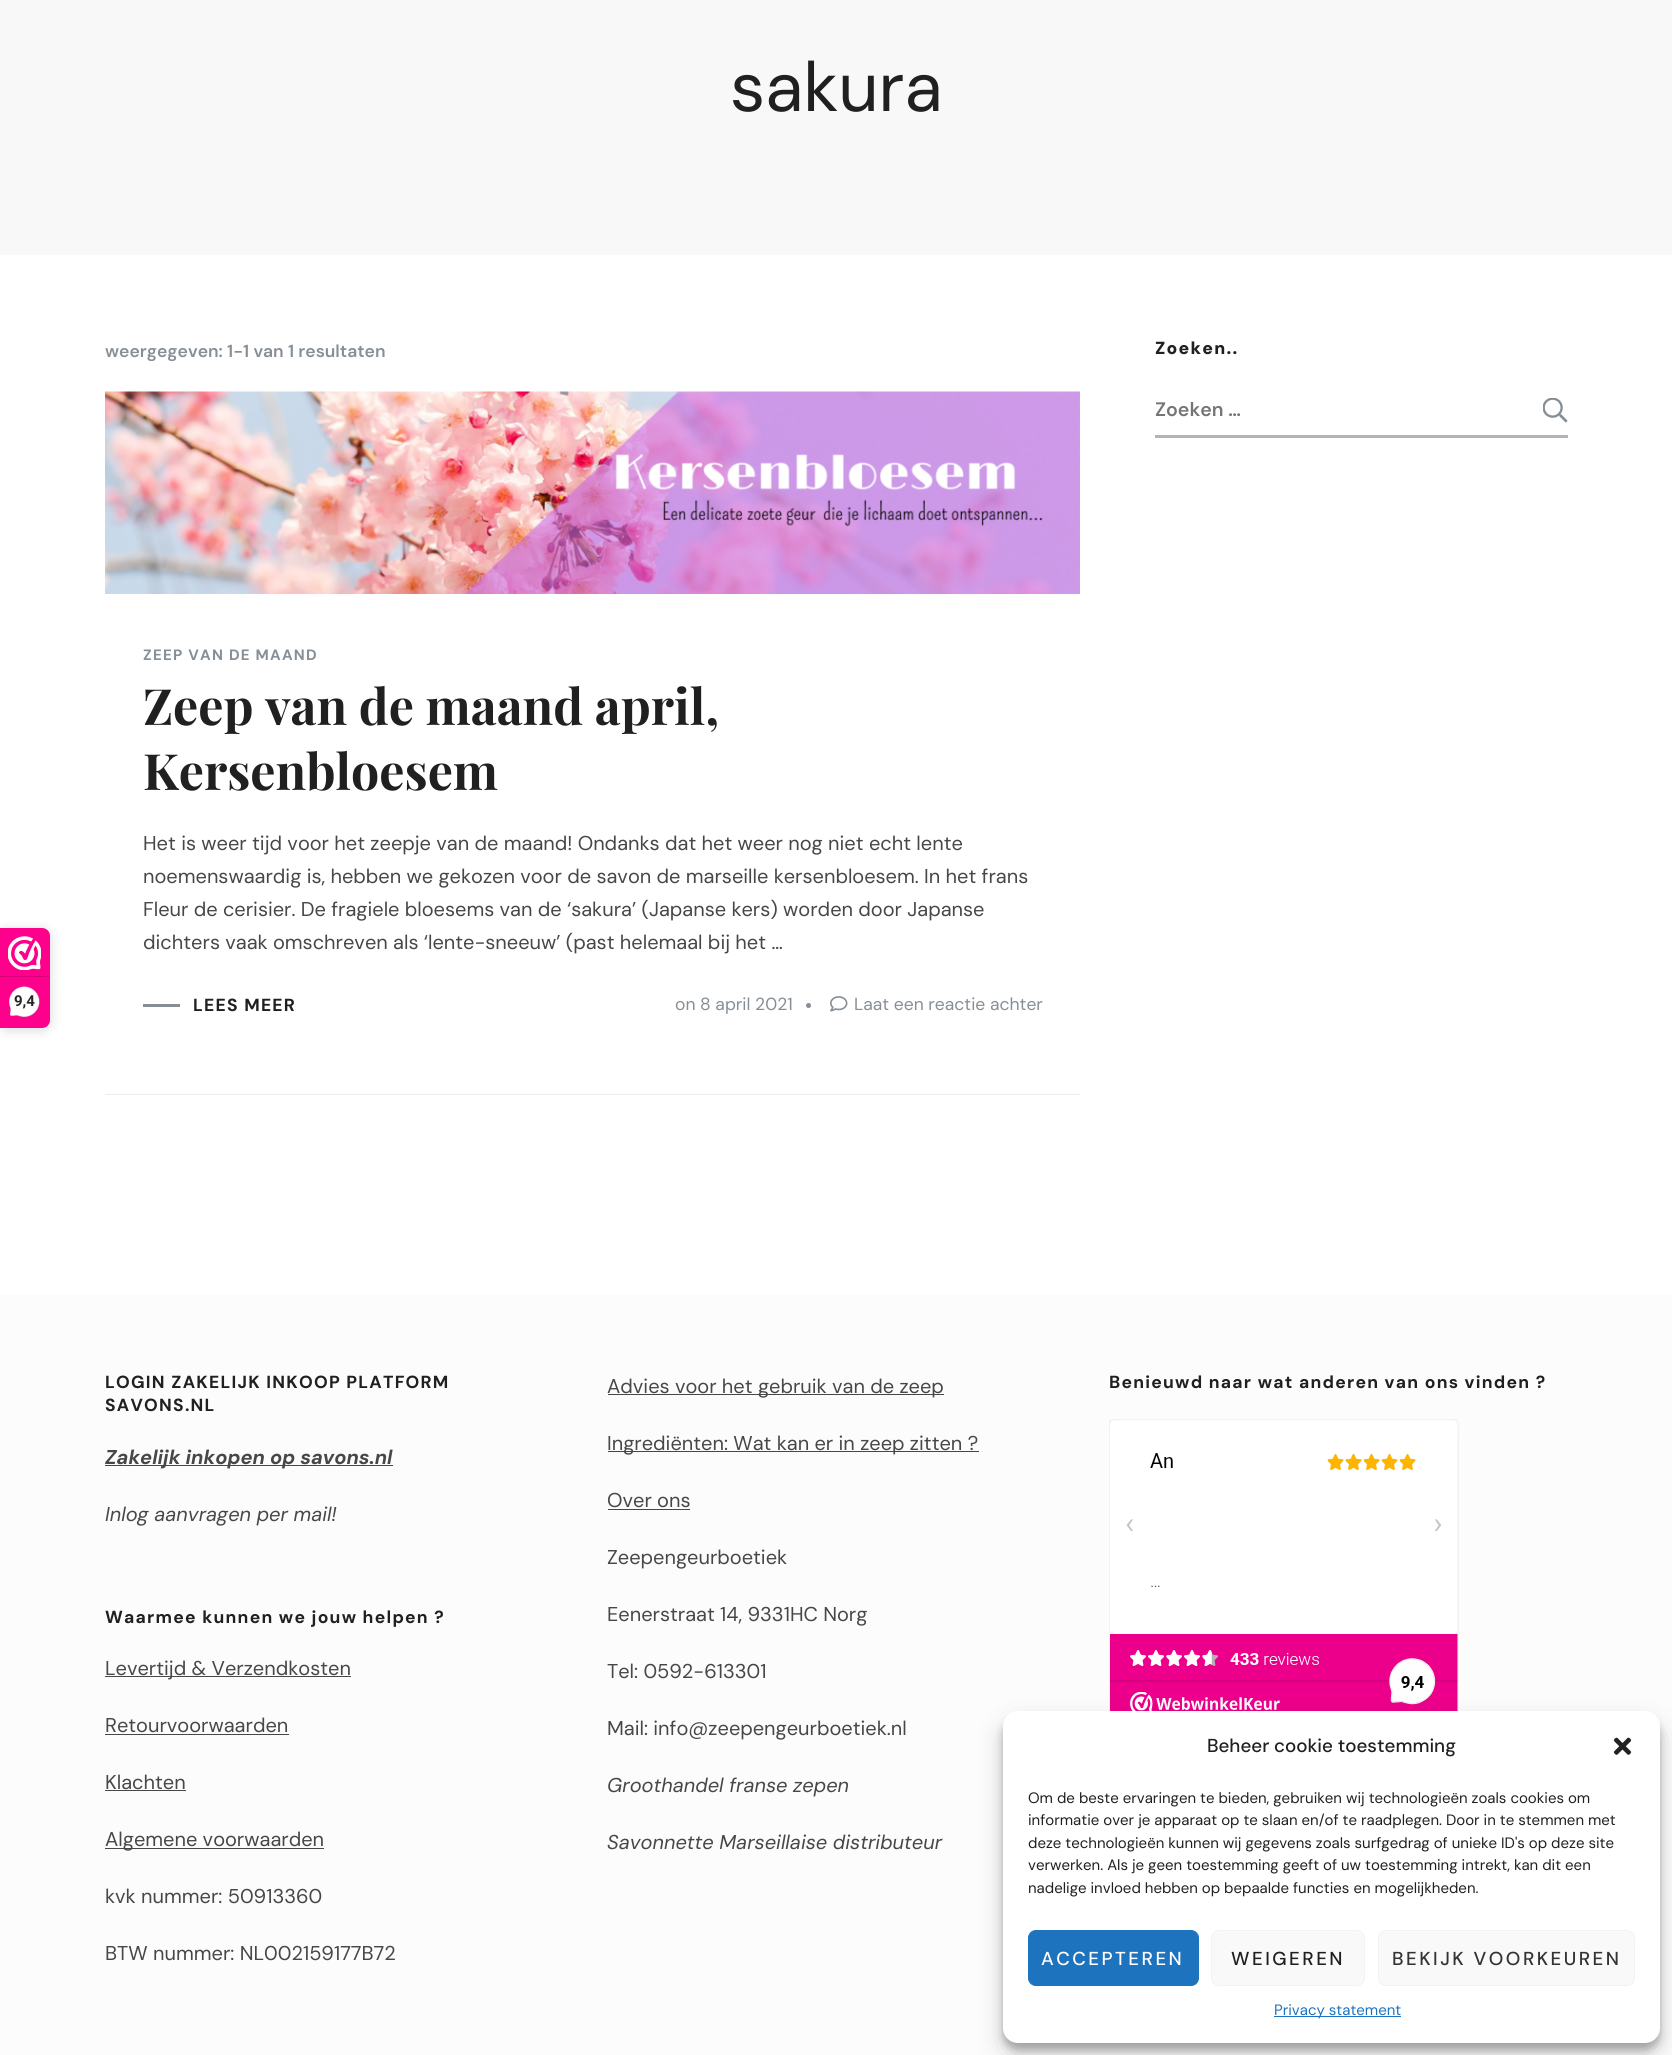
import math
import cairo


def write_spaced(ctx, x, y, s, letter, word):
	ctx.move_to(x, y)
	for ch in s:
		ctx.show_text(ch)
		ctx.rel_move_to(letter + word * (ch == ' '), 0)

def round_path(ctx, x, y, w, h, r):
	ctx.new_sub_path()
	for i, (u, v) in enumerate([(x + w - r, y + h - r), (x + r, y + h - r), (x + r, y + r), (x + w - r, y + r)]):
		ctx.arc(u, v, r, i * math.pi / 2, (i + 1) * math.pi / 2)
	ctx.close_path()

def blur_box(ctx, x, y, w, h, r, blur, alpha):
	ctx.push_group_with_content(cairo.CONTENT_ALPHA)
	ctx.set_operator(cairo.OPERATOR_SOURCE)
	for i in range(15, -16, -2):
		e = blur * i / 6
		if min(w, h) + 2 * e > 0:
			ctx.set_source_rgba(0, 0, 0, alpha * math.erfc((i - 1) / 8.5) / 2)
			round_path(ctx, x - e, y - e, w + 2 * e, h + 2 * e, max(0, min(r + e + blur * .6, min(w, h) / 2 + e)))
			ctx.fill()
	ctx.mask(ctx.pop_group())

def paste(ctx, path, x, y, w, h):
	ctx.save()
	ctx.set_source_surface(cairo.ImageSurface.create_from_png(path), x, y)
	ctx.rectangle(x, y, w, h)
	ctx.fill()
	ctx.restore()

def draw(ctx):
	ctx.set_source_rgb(1, 1, 1)
	ctx.paint()
	ctx.set_source_rgb(0, 0, 0)
	blur_box(ctx, 0, 930, 50, 100, 8, 6, 0.15)
	ctx.set_source_rgb(0.996, 0, 0.549)
	ctx.new_path()
	ctx.move_to(0, 928)
	ctx.line_to(42, 928)
	ctx.curve_to(46.5, 928, 50, 931.5, 50, 936)
	ctx.line_to(50, 1020)
	ctx.curve_to(50, 1024.5, 46.5, 1028, 42, 1028)
	ctx.line_to(0, 1028)
	ctx.close_path()
	ctx.fill()
	paste(ctx, 'media/1.png', 8, 936, 33, 34)
	ctx.set_source_rgb(0.847, 0, 0.467)
	ctx.rectangle(0, 976, 49, 1)
	ctx.fill()
	paste(ctx, 'media/2.png', 9, 986, 31, 32)
	ctx.select_font_face('Roboto', cairo.FONT_SLANT_NORMAL, cairo.FONT_WEIGHT_BOLD)
	ctx.set_font_size(15)
	ctx.set_source_rgb(0.153, 0.149, 0.149)
	ctx.move_to(14, 1006)
	ctx.show_text('9,4')
	ctx.set_source_rgb(0.969, 0.969, 0.969)
	ctx.rectangle(0, 0, 1672, 255)
	ctx.fill()
	ctx.select_font_face('DM Sans')
	ctx.set_font_size(70)
	ctx.set_source_rgb(0.125, 0.125, 0.125)
	ctx.move_to(730, 111)
	ctx.show_text('sakura')
	ctx.select_font_face('DM Sans SemiBold')
	ctx.set_font_size(17.5)
	ctx.set_source_rgb(0.525, 0.557, 0.588)
	ctx.move_to(105, 357)
	ctx.show_text('weergegeven: 1-1 van 1 resultaten')
	ctx.set_source_rgb(0.929, 0.929, 0.929)
	ctx.rectangle(105, 1094, 975, 1)
	ctx.fill()
	paste(ctx, 'media/3.png', 105, 391, 975, 203)
	ctx.select_font_face('DM Sans', cairo.FONT_SLANT_NORMAL, cairo.FONT_WEIGHT_BOLD)
	ctx.set_font_size(15)
	ctx.set_source_rgb(0.525, 0.557, 0.588)
	write_spaced(ctx, 143, 660, 'ZEEP VAN DE MAAND', 1.25, 0)
	ctx.select_font_face('Playfair Display', cairo.FONT_SLANT_NORMAL, cairo.FONT_WEIGHT_BOLD)
	ctx.set_font_size(50)
	ctx.set_source_rgb(0.125, 0.125, 0.125)
	ctx.move_to(143, 725)
	ctx.show_text('Zeep van de maand april,')
	ctx.move_to(143, 790)
	ctx.show_text('Kersenbloesem')
	ctx.select_font_face('DM Sans')
	ctx.set_font_size(20)
	ctx.set_source_rgb(0.278, 0.278, 0.278)
	for x, y, s in [
		(143, 850, 'Het is weer tijd voor het zeepje van de maand! Ondanks dat het weer nog niet echt lente'),
		(143, 883, 'noemenswaardig is, hebben we gekozen voor de savon de marseille kersenbloesem. In het frans'),
		(143, 916, 'Fleur de cerisier. De fragiele bloesems van de ‘sakura’ (Japanse kers) worden door Japanse'),
		(143, 949, 'dichters vaak omschreven als ‘lente-sneeuw’ (past helemaal bij het …'),
	]:
		ctx.move_to(x, y)
		ctx.show_text(s)
	ctx.set_source_rgb(0.525, 0.557, 0.588)
	ctx.rectangle(143, 1004, 37, 3)
	ctx.fill()
	ctx.select_font_face('DM Sans', cairo.FONT_SLANT_NORMAL, cairo.FONT_WEIGHT_BOLD)
	ctx.set_font_size(17.5)
	ctx.set_source_rgb(0.125, 0.125, 0.125)
	write_spaced(ctx, 193, 1011, 'LEES MEER', 1.25, 0)
	ctx.select_font_face('DM Sans')
	ctx.set_source_rgb(0.525, 0.557, 0.588)
	ctx.move_to(675, 1010)
	ctx.show_text('on 8 april 2021')
	ctx.new_path()
	ctx.arc(808.5, 1005.5, 2.5, 0, 2 * math.pi)
	ctx.fill()
	paste(ctx, 'media/4.png', 830, 996, 18, 16)
	ctx.move_to(854, 1010)
	ctx.show_text('Laat een reactie achter')
	ctx.select_font_face('DM Sans Black')
	ctx.set_source_rgb(0.125, 0.125, 0.125)
	write_spaced(ctx, 1155, 354, 'Zoeken..', 1.25, 0)
	ctx.set_source_rgb(0.702, 0.702, 0.702)
	ctx.rectangle(1155, 435, 413, 3)
	ctx.fill()
	ctx.select_font_face('DM Sans SemiBold')
	ctx.set_font_size(19.5)
	ctx.set_source_rgb(0.459, 0.459, 0.459)
	ctx.move_to(1155, 416)
	ctx.show_text('Zoeken …')
	paste(ctx, 'media/5.png', 1543, 398, 25, 25)
	ctx.set_source_rgb(0.988, 0.988, 0.988)
	ctx.rectangle(0, 1295, 1672, 760)
	ctx.fill()
	ctx.select_font_face('DM Sans', cairo.FONT_SLANT_NORMAL, cairo.FONT_WEIGHT_BOLD)
	ctx.set_font_size(17.5)
	ctx.set_source_rgb(0.125, 0.125, 0.125)
	write_spaced(ctx, 105, 1388, 'LOGIN ZAKELIJK INKOOP PLATFORM', 1.25, 0)
	write_spaced(ctx, 105, 1411, 'SAVONS.NL', 1.25, 0)
	ctx.set_source_rgb(0.278, 0.278, 0.278)
	ctx.rectangle(105, 1465, 288, 1)
	ctx.fill()
	ctx.select_font_face('DM Sans', cairo.FONT_SLANT_ITALIC, cairo.FONT_WEIGHT_BOLD)
	ctx.set_font_size(20)
	ctx.move_to(105, 1464)
	ctx.show_text('Zakelijk inkopen op savons.nl')
	ctx.select_font_face('DM Sans', cairo.FONT_SLANT_ITALIC)
	ctx.move_to(105, 1521)
	ctx.show_text('Inlog aanvragen per mail!')
	ctx.select_font_face('DM Sans', cairo.FONT_SLANT_NORMAL, cairo.FONT_WEIGHT_BOLD)
	ctx.set_font_size(17.5)
	ctx.set_source_rgb(0.125, 0.125, 0.125)
	write_spaced(ctx, 105, 1623, 'Waarmee kunnen we jouw helpen ?', 1.25, 0)
	ctx.set_source_rgb(0.278, 0.278, 0.278)
	ctx.rectangle(105, 1676, 246, 1)
	ctx.fill()
	ctx.select_font_face('DM Sans')
	ctx.set_font_size(20)
	ctx.move_to(105, 1675)
	ctx.show_text('Levertijd & Verzendkosten')
	ctx.move_to(105, 1732)
	ctx.show_text('Retourvoorwaarden')
	ctx.rectangle(105, 1734, 184, 1)
	ctx.fill()
	ctx.move_to(105, 1789)
	ctx.show_text('Klachten')
	ctx.rectangle(105, 1790, 81, 1)
	ctx.fill()
	ctx.rectangle(105, 1848, 219, 1)
	ctx.fill()
	for x, y, s in [
		(105, 1846, 'Algemene voorwaarden'),
		(105, 1903, 'kvk nummer: 50913360'),
		(105, 1960, 'BTW nummer: NL002159177B72'),
	]:
		ctx.move_to(x, y)
		ctx.show_text(s)
	ctx.rectangle(608, 1394, 336, 1)
	ctx.fill()
	ctx.move_to(607, 1393)
	ctx.show_text('Advies voor het gebruik van de zeep')
	ctx.rectangle(608, 1451, 371, 1)
	ctx.fill()
	ctx.move_to(607, 1450)
	ctx.show_text('Ingrediënten: Wat kan er in zeep zitten ?')
	ctx.move_to(607, 1507)
	ctx.show_text('Over ons')
	ctx.rectangle(608, 1509, 82, 1)
	ctx.fill()
	for x, y, s in [
		(607, 1564, 'Zeepengeurboetiek'),
		(607, 1621, 'Eenerstraat 14, 9331HC Norg'),
		(607, 1678, 'Tel: 0592-613301'),
		(607, 1735, 'Mail: info@zeepengeurboetiek.nl'),
	]:
		ctx.move_to(x, y)
		ctx.show_text(s)
	ctx.select_font_face('DM Sans', cairo.FONT_SLANT_ITALIC)
	ctx.move_to(607, 1792)
	ctx.show_text('Groothandel franse zepen')
	ctx.move_to(607, 1849)
	ctx.show_text('Savonnette Marseillaise distributeur')
	ctx.select_font_face('DM Sans', cairo.FONT_SLANT_NORMAL, cairo.FONT_WEIGHT_BOLD)
	ctx.set_font_size(17.5)
	ctx.set_source_rgb(0.125, 0.125, 0.125)
	write_spaced(ctx, 1109, 1388, 'Benieuwd naar wat anderen van ons vinden ?', 1.25, 0)
	paste(ctx, 'media/6.png', 1109, 1419, 350, 292)
	ctx.set_source_rgb(0, 0, 0)
	blur_box(ctx, 1003, 1719, 657, 331, 15, 4, 0.23)
	blur_box(ctx, 1003, 1724, 657, 331, 15, 12.5, 0.19)
	ctx.set_source_rgb(1, 1, 1)
	round_path(ctx, 1003, 1711, 657, 332, 15)
	ctx.fill()
	ctx.select_font_face('DM Sans Medium')
	ctx.set_font_size(18.75)
	ctx.set_source_rgb(0.125, 0.125, 0.125)
	ctx.move_to(1207, 1752)
	ctx.show_text('Beheer cookie toestemming')
	paste(ctx, 'media/7.png', 1613, 1737, 19, 18)
	ctx.select_font_face('DM Sans')
	ctx.set_font_size(15)
	for x, y, s in [
		(1028, 1803, 'Om de beste ervaringen te bieden, gebruiken wij technologieën zoals cookies om'),
		(1028, 1825, 'informatie over je apparaat op te slaan en/of te raadplegen. Door in te stemmen met'),
		(1028, 1848, 'deze technologieën kunnen wij gegevens zoals surfgedrag of unieke ID\'s op deze site'),
		(1028, 1870, 'verwerken. Als je geen toestemming geeft of uw toestemming intrekt, kan dit een'),
		(1028, 1893, 'nadelige invloed hebben op bepaalde functies en mogelijkheden.'),
	]:
		ctx.move_to(x, y)
		ctx.show_text(s)
	ctx.set_source_rgb(0.118, 0.451, 0.745)
	round_path(ctx, 1028.5, 1930.5, 170, 55, 7.5)
	ctx.fill_preserve()
	ctx.set_line_width(1)
	ctx.stroke()
	ctx.select_font_face('DM Sans Medium')
	ctx.set_font_size(18.75)
	ctx.set_source_rgb(1, 1, 1)
	write_spaced(ctx, 1041, 1965, 'ACCEPTEREN', 2.5, 0)
	ctx.set_source_rgb(0.976, 0.976, 0.976)
	round_path(ctx, 1211.5, 1930.5, 153, 55, 7.5)
	ctx.fill_preserve()
	ctx.set_source_rgb(0.949, 0.949, 0.949)
	ctx.stroke()
	ctx.set_source_rgb(0.125, 0.125, 0.125)
	write_spaced(ctx, 1231, 1965, 'WEIGEREN', 2.5, 0)
	ctx.set_source_rgb(0.976, 0.976, 0.976)
	round_path(ctx, 1378.5, 1930.5, 256, 55, 7.5)
	ctx.fill_preserve()
	ctx.set_source_rgb(0.949, 0.949, 0.949)
	ctx.stroke()
	ctx.set_source_rgb(0.2, 0.2, 0.2)
	write_spaced(ctx, 1392, 1965, 'BEKIJK VOORKEUREN', 2.5, 0)
	ctx.set_source_rgb(0.118, 0.451, 0.745)
	ctx.rectangle(1274, 2016, 127, 1)
	ctx.fill()
	ctx.select_font_face('DM Sans')
	ctx.set_font_size(15)
	ctx.move_to(1274, 2015)
	ctx.show_text('Privacy statement')


surface = cairo.ImageSurface(cairo.FORMAT_RGB24, 1672, 2055)
ctx = cairo.Context(surface)
options = cairo.FontOptions()
options.set_hint_metrics(cairo.HINT_METRICS_OFF)
options.set_hint_style(cairo.HINT_STYLE_NONE)
ctx.set_font_options(options)
ctx.set_miter_limit(4)
draw(ctx)
surface.write_to_png('image.png')
